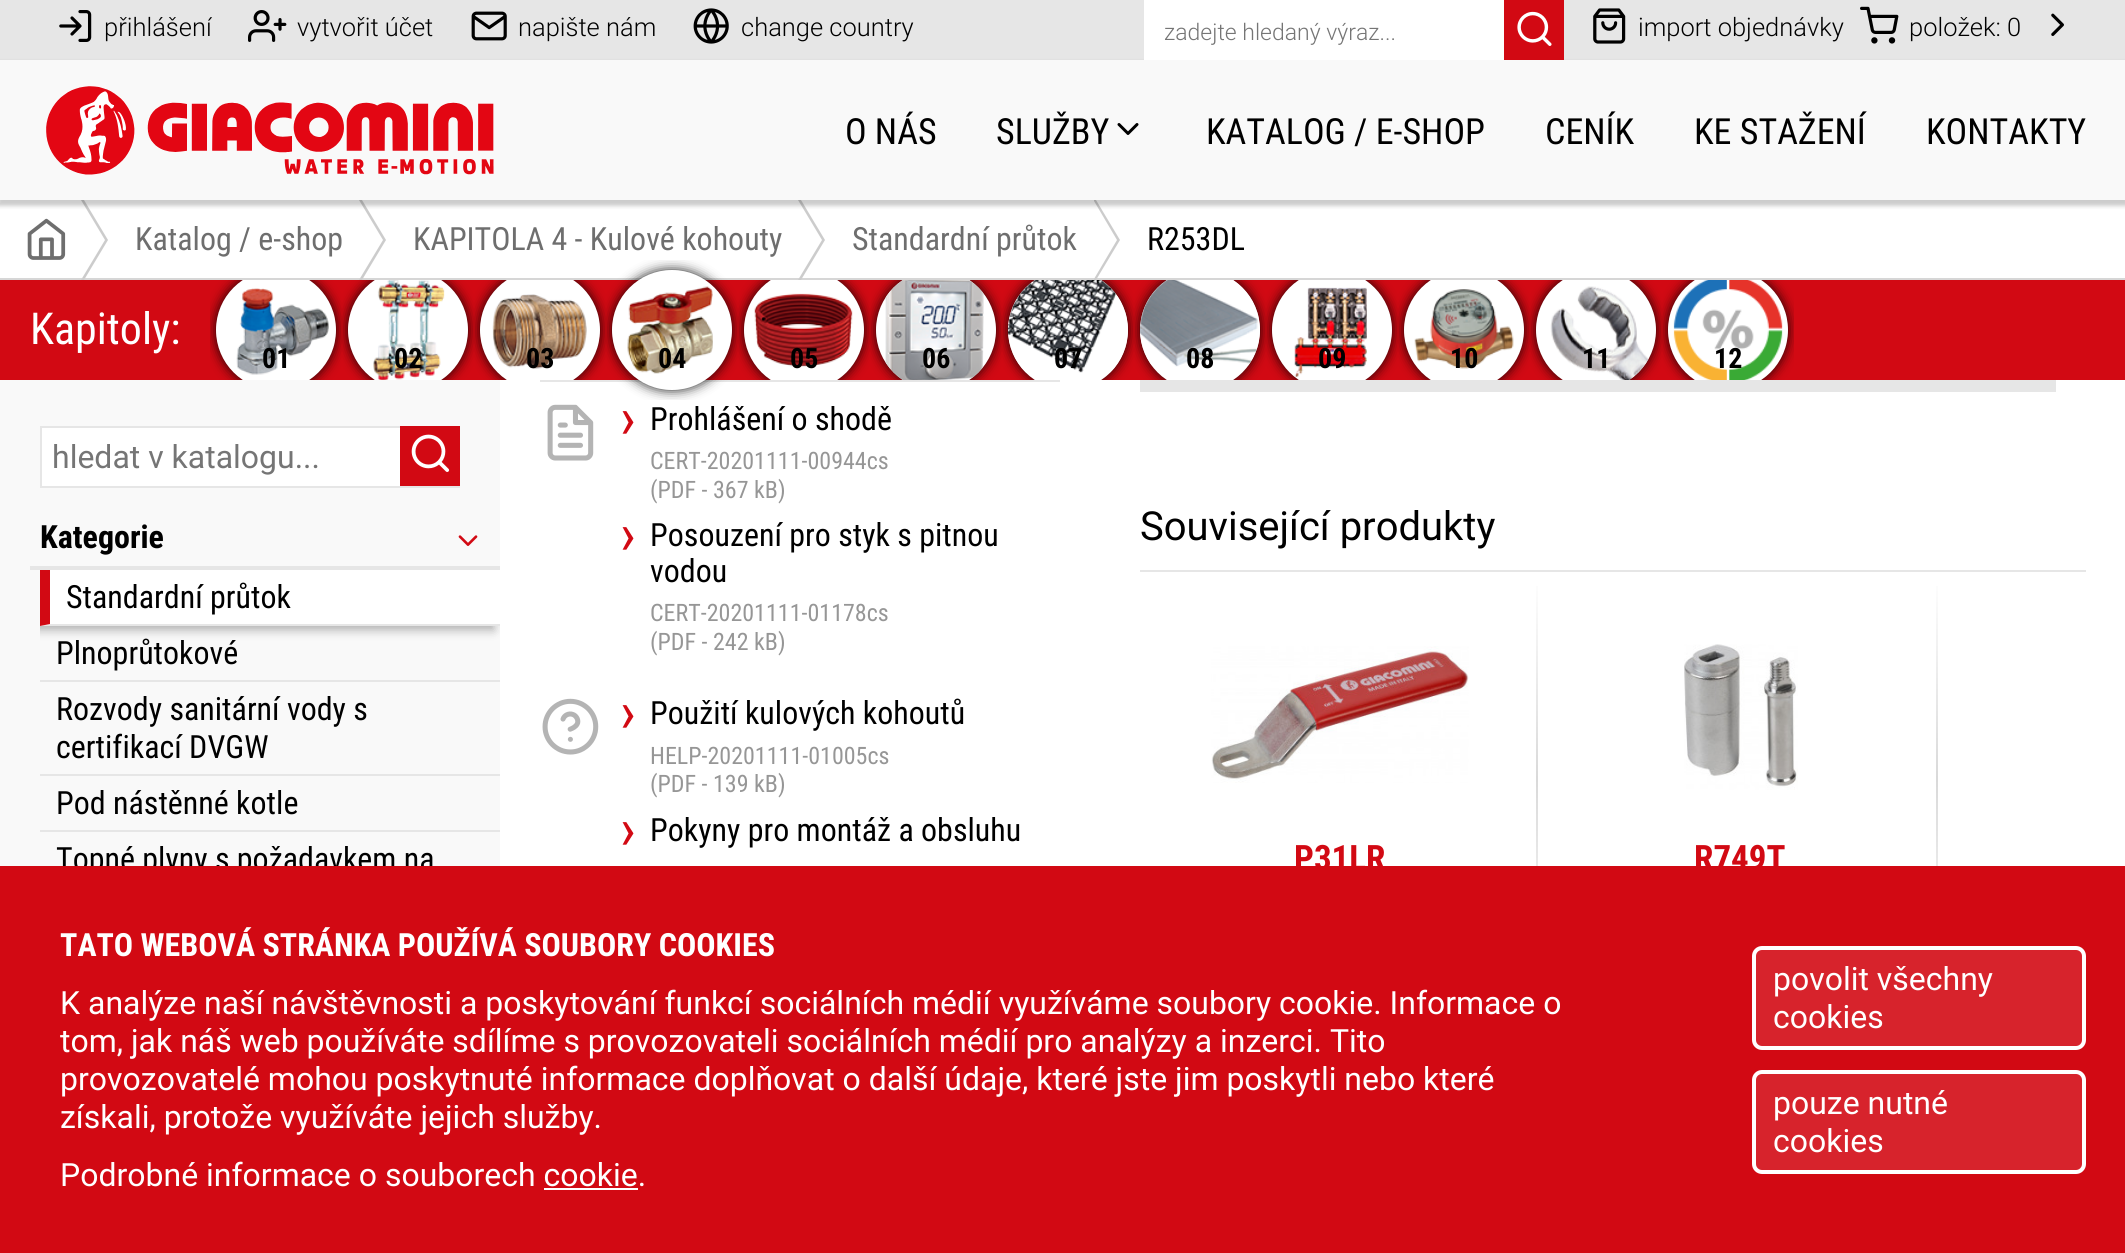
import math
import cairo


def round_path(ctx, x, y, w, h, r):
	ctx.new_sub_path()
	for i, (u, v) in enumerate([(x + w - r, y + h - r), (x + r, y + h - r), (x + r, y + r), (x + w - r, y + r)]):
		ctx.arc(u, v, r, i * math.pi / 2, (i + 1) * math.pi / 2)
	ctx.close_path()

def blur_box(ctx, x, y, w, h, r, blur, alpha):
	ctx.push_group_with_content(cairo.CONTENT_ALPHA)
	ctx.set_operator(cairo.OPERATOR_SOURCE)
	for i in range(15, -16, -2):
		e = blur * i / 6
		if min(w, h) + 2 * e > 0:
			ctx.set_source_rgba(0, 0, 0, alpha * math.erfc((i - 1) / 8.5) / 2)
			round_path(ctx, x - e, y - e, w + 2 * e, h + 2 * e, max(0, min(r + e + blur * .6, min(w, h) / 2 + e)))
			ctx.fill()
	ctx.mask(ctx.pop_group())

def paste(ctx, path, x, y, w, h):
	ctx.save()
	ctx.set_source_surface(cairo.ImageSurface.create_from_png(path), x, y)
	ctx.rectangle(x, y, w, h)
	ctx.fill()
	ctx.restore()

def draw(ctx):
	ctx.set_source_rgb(1, 1, 1)
	ctx.paint()
	ctx.set_source_rgb(0.902, 0.902, 0.902)
	ctx.rectangle(0, 0, 2125, 60)
	ctx.fill()
	paste(ctx, 'media/1.png', 59, 10, 33, 32)
	ctx.select_font_face('Roboto Light')
	ctx.set_font_size(25.5)
	ctx.set_source_rgb(0, 0, 0)
	ctx.move_to(104, 36)
	ctx.show_text('přihlášení')
	paste(ctx, 'media/2.png', 248, 10, 39, 32)
	ctx.move_to(297, 36)
	ctx.show_text('vytvořit účet')
	paste(ctx, 'media/3.png', 471, 11, 36, 30)
	ctx.move_to(518, 36)
	ctx.show_text('napište nám')
	paste(ctx, 'media/4.png', 693, 8, 36, 36)
	ctx.move_to(741, 36)
	ctx.show_text('change country')
	ctx.set_source_rgb(0.839, 0.839, 0.839)
	ctx.rectangle(0, 278, 2125, 2)
	ctx.fill()
	ctx.set_source_rgb(0.8, 0.8, 0.8)
	ctx.new_path()
	ctx.move_to(81, 200)
	ctx.line_to(105, 240)
	ctx.line_to(81, 280)
	ctx.line_to(84, 280)
	ctx.line_to(108, 240)
	ctx.line_to(84, 200)
	ctx.close_path()
	ctx.fill()
	ctx.new_path()
	ctx.move_to(359, 200)
	ctx.line_to(383, 240)
	ctx.line_to(359, 280)
	ctx.line_to(362, 280)
	ctx.line_to(386, 240)
	ctx.line_to(362, 200)
	ctx.close_path()
	ctx.fill()
	ctx.new_path()
	ctx.move_to(798, 200)
	ctx.line_to(822, 240)
	ctx.line_to(798, 280)
	ctx.line_to(801, 280)
	ctx.line_to(825, 240)
	ctx.line_to(801, 200)
	ctx.close_path()
	ctx.fill()
	ctx.new_path()
	ctx.move_to(1094, 200)
	ctx.line_to(1096, 200)
	ctx.line_to(1120, 240)
	ctx.line_to(1096, 280)
	ctx.line_to(1094, 280)
	ctx.line_to(1094, 279)
	ctx.line_to(1117, 240)
	ctx.line_to(1094, 201)
	ctx.close_path()
	ctx.fill()
	ctx.set_source_rgb(0, 0, 0)
	blur_box(ctx, -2, 62, 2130, 144, 0, 2, 0.2)
	ctx.set_source_rgb(1, 1, 1)
	ctx.rectangle(1144, 0, 360, 60)
	ctx.fill()
	ctx.set_font_size(23)
	ctx.set_source_rgb(0.459, 0.459, 0.459)
	ctx.move_to(1164, 40)
	ctx.show_text('zadejte hledaný výraz...')
	ctx.set_source_rgb(0.824, 0.039, 0.078)
	ctx.rectangle(1504, 0, 60, 60)
	ctx.fill()
	paste(ctx, 'media/5.png', 1517, 11, 35, 35)
	paste(ctx, 'media/6.png', 1593, 8, 33, 36)
	ctx.set_font_size(25.5)
	ctx.set_source_rgb(0, 0, 0)
	ctx.move_to(1638, 36)
	ctx.show_text('import objednávky')
	paste(ctx, 'media/7.png', 1860, 6, 39, 38)
	ctx.move_to(1909, 36)
	ctx.show_text('položek: 0')
	paste(ctx, 'media/8.png', 2051, 13, 13, 23)
	ctx.set_source_rgb(0.973, 0.973, 0.973)
	ctx.rectangle(0, 60, 2125, 140)
	ctx.fill()
	paste(ctx, 'media/9.png', 46, 86, 448, 89)
	ctx.select_font_face('Roboto Condensed')
	ctx.set_font_size(36)
	ctx.set_source_rgb(0, 0, 0)
	ctx.move_to(845, 144)
	ctx.show_text('O NÁS')
	ctx.move_to(996, 144)
	ctx.show_text('SLUŽBY')
	paste(ctx, 'media/10.png', 1117, 123, 22, 12)
	for x, y, s in [
		(1206, 144, 'KATALOG / E-SHOP'),
		(1545, 144, 'CENÍK'),
		(1694, 144, 'KE STAŽENÍ'),
		(1926, 144, 'KONTAKTY'),
	]:
		ctx.move_to(x, y)
		ctx.show_text(s)
	paste(ctx, 'media/11.png', 27, 218, 39, 42)
	ctx.set_font_size(32)
	ctx.set_source_rgb(0.431, 0.431, 0.431)
	for x, y, s in [
		(135, 250, 'Katalog / e-shop'),
		(413, 250, 'KAPITOLA 4 - Kulové kohouty'),
		(852, 250, 'Standardní průtok'),
	]:
		ctx.move_to(x, y)
		ctx.show_text(s)
	ctx.set_source_rgb(0, 0, 0)
	ctx.move_to(1147, 250)
	ctx.show_text('R253DL')
	ctx.set_source_rgb(0.824, 0.039, 0.078)
	ctx.rectangle(0, 280, 2125, 100)
	ctx.fill()
	ctx.set_font_size(44)
	ctx.set_source_rgb(1, 1, 1)
	ctx.move_to(30, 344)
	ctx.show_text('Kapitoly:')
	ctx.set_source_rgb(0.973, 0.973, 0.973)
	ctx.rectangle(0, 380, 500, 486)
	ctx.fill()
	ctx.save()
	ctx.rectangle(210, 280, 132, 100)
	ctx.clip()
	ctx.set_source_rgb(0, 0, 0)
	blur_box(ctx, 216, 270, 120, 120, 60, 6, 0.9)
	ctx.restore()
	ctx.save()
	ctx.rectangle(210, 280, 132, 100)
	ctx.clip()
	ctx.set_source_rgb(1, 1, 1)
	ctx.arc(276, 330, 60, 0, 2 * math.pi)
	ctx.fill()
	ctx.restore()
	paste(ctx, 'media/12.png', 236, 288, 93, 87)
	ctx.select_font_face('Roboto Condensed', cairo.FONT_SLANT_NORMAL, cairo.FONT_WEIGHT_BOLD)
	ctx.set_font_size(28)
	ctx.set_source_rgb(0, 0, 0)
	ctx.move_to(262, 368)
	ctx.show_text('01')
	ctx.save()
	ctx.rectangle(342, 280, 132, 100)
	ctx.clip()
	ctx.set_source_rgb(0, 0, 0)
	blur_box(ctx, 348, 270, 120, 120, 60, 6, 0.9)
	ctx.restore()
	ctx.save()
	ctx.rectangle(342, 280, 132, 100)
	ctx.clip()
	ctx.set_source_rgb(1, 1, 1)
	ctx.arc(408, 330, 60, 0, 2 * math.pi)
	ctx.fill()
	ctx.restore()
	paste(ctx, 'media/13.png', 373, 280, 72, 100)
	ctx.move_to(394, 368)
	ctx.show_text('02')
	ctx.set_source_rgb(0.902, 0.902, 0.902)
	ctx.rectangle(540, 380, 520, 2)
	ctx.fill()
	paste(ctx, 'media/26.png', 547, 404, 47, 57)
	ctx.save()
	ctx.rectangle(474, 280, 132, 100)
	ctx.clip()
	ctx.set_source_rgb(0, 0, 0)
	blur_box(ctx, 480, 270, 120, 120, 60, 6, 0.9)
	ctx.restore()
	ctx.save()
	ctx.rectangle(474, 280, 132, 100)
	ctx.clip()
	ctx.set_source_rgb(1, 1, 1)
	ctx.arc(540, 330, 60, 0, 2 * math.pi)
	ctx.fill()
	ctx.restore()
	paste(ctx, 'media/14.png', 492, 294, 95, 75)
	ctx.set_source_rgb(0, 0, 0)
	ctx.move_to(526, 368)
	ctx.show_text('03')
	ctx.save()
	ctx.rectangle(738, 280, 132, 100)
	ctx.clip()
	ctx.set_source_rgb(0, 0, 0)
	blur_box(ctx, 744, 270, 120, 120, 60, 6, 0.9)
	ctx.restore()
	ctx.save()
	ctx.rectangle(738, 280, 132, 100)
	ctx.clip()
	ctx.set_source_rgb(1, 1, 1)
	ctx.arc(804, 330, 60, 0, 2 * math.pi)
	ctx.fill()
	ctx.restore()
	ctx.save()
	ctx.rectangle(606, 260, 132, 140)
	ctx.clip()
	ctx.set_source_rgb(0, 0, 0)
	blur_box(ctx, 612, 270, 120, 120, 60, 6, 0.9)
	ctx.restore()
	ctx.set_source_rgb(1, 1, 1)
	ctx.arc(672, 330, 60, 0, 2 * math.pi)
	ctx.fill()
	paste(ctx, 'media/15.png', 627, 286, 86, 88)
	ctx.set_source_rgb(0, 0, 0)
	ctx.move_to(658, 368)
	ctx.show_text('04')
	paste(ctx, 'media/16.png', 754, 293, 99, 74)
	ctx.move_to(790, 368)
	ctx.show_text('05')
	ctx.save()
	ctx.rectangle(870, 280, 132, 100)
	ctx.clip()
	ctx.set_source_rgb(0, 0, 0)
	blur_box(ctx, 876, 270, 120, 120, 60, 6, 0.9)
	ctx.restore()
	ctx.save()
	ctx.rectangle(870, 280, 132, 100)
	ctx.clip()
	ctx.set_source_rgb(1, 1, 1)
	ctx.arc(936, 330, 60, 0, 2 * math.pi)
	ctx.fill()
	ctx.restore()
	paste(ctx, 'media/17.png', 885, 280, 99, 100)
	ctx.move_to(922, 368)
	ctx.show_text('06')
	ctx.set_source_rgb(0.902, 0.902, 0.902)
	ctx.rectangle(1140, 380, 916, 12)
	ctx.fill()
	ctx.save()
	ctx.rectangle(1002, 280, 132, 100)
	ctx.clip()
	ctx.set_source_rgb(0, 0, 0)
	blur_box(ctx, 1008, 270, 120, 120, 60, 6, 0.9)
	ctx.restore()
	ctx.save()
	ctx.rectangle(1002, 280, 132, 100)
	ctx.clip()
	ctx.set_source_rgb(1, 1, 1)
	ctx.arc(1068, 330, 60, 0, 2 * math.pi)
	ctx.fill()
	ctx.restore()
	paste(ctx, 'media/18.png', 1008, 280, 120, 93)
	ctx.set_source_rgb(0, 0, 0)
	ctx.move_to(1054, 368)
	ctx.show_text('07')
	ctx.save()
	ctx.rectangle(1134, 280, 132, 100)
	ctx.clip()
	ctx.set_source_rgb(0, 0, 0)
	blur_box(ctx, 1140, 270, 120, 120, 60, 6, 0.9)
	ctx.restore()
	ctx.save()
	ctx.rectangle(1134, 280, 132, 100)
	ctx.clip()
	ctx.set_source_rgb(1, 1, 1)
	ctx.arc(1200, 330, 60, 0, 2 * math.pi)
	ctx.fill()
	ctx.restore()
	paste(ctx, 'media/19.png', 1140, 280, 120, 87)
	ctx.move_to(1186, 368)
	ctx.show_text('08')
	ctx.save()
	ctx.rectangle(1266, 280, 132, 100)
	ctx.clip()
	ctx.set_source_rgb(0, 0, 0)
	blur_box(ctx, 1272, 270, 120, 120, 60, 6, 0.9)
	ctx.restore()
	ctx.save()
	ctx.rectangle(1266, 280, 132, 100)
	ctx.clip()
	ctx.set_source_rgb(1, 1, 1)
	ctx.arc(1332, 330, 60, 0, 2 * math.pi)
	ctx.fill()
	ctx.restore()
	paste(ctx, 'media/20.png', 1294, 287, 73, 90)
	ctx.move_to(1318, 368)
	ctx.show_text('09')
	ctx.save()
	ctx.rectangle(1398, 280, 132, 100)
	ctx.clip()
	ctx.set_source_rgb(0, 0, 0)
	blur_box(ctx, 1404, 270, 120, 120, 60, 6, 0.9)
	ctx.restore()
	ctx.save()
	ctx.rectangle(1398, 280, 132, 100)
	ctx.clip()
	ctx.set_source_rgb(1, 1, 1)
	ctx.arc(1464, 330, 60, 0, 2 * math.pi)
	ctx.fill()
	ctx.restore()
	paste(ctx, 'media/21.png', 1414, 289, 100, 80)
	ctx.move_to(1450, 368)
	ctx.show_text('10')
	ctx.save()
	ctx.rectangle(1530, 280, 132, 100)
	ctx.clip()
	ctx.set_source_rgb(0, 0, 0)
	blur_box(ctx, 1536, 270, 120, 120, 60, 6, 0.9)
	ctx.restore()
	ctx.save()
	ctx.rectangle(1530, 280, 132, 100)
	ctx.clip()
	ctx.set_source_rgb(1, 1, 1)
	ctx.arc(1596, 330, 60, 0, 2 * math.pi)
	ctx.fill()
	ctx.restore()
	paste(ctx, 'media/22.png', 1550, 286, 100, 94)
	ctx.move_to(1582, 368)
	ctx.show_text('11')
	ctx.save()
	ctx.rectangle(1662, 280, 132, 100)
	ctx.clip()
	ctx.set_source_rgb(0, 0, 0)
	blur_box(ctx, 1668, 270, 120, 120, 60, 6, 0.9)
	ctx.restore()
	ctx.save()
	ctx.rectangle(1662, 280, 132, 100)
	ctx.clip()
	ctx.set_source_rgb(1, 1, 1)
	ctx.arc(1728, 330, 60, 0, 2 * math.pi)
	ctx.fill()
	ctx.restore()
	paste(ctx, 'media/23.png', 1673, 280, 110, 100)
	ctx.move_to(1714, 368)
	ctx.show_text('12')
	ctx.set_source_rgb(1, 1, 1)
	ctx.rectangle(42, 428, 358, 58)
	ctx.fill()
	ctx.rectangle(41, 427, 418, 60)
	ctx.set_source_rgb(0.902, 0.902, 0.902)
	ctx.stroke()
	ctx.select_font_face('Roboto')
	ctx.set_font_size(32)
	ctx.set_source_rgb(0.459, 0.459, 0.459)
	ctx.move_to(52, 468)
	ctx.show_text('hledat v katalogu...')
	ctx.set_source_rgb(0.824, 0.039, 0.078)
	ctx.rectangle(400, 426, 60, 60)
	ctx.fill()
	paste(ctx, 'media/24.png', 411, 434, 39, 38)
	ctx.set_source_rgb(0.902, 0.902, 0.902)
	ctx.rectangle(30, 566, 470, 4)
	ctx.fill()
	ctx.select_font_face('Roboto Condensed', cairo.FONT_SLANT_NORMAL, cairo.FONT_WEIGHT_BOLD)
	ctx.set_source_rgb(0, 0, 0)
	ctx.move_to(40, 548)
	ctx.show_text('Kategorie')
	paste(ctx, 'media/25.png', 458, 535, 20, 11)
	ctx.save()
	ctx.rectangle(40, 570, 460, 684)
	ctx.clip()
	ctx.set_source_rgb(0, 0, 0)
	blur_box(ctx, 34, 574, 460, 56, 0, 5, 0.3)
	ctx.restore()
	ctx.set_source_rgb(1, 1, 1)
	ctx.rectangle(40, 570, 460, 56)
	ctx.fill()
	ctx.set_source_rgb(0.902, 0.902, 0.902)
	ctx.new_path()
	ctx.move_to(500, 626)
	ctx.line_to(40, 626)
	ctx.line_to(50, 624)
	ctx.line_to(500, 624)
	ctx.close_path()
	ctx.fill()
	ctx.set_source_rgb(0.824, 0.039, 0.078)
	ctx.new_path()
	ctx.move_to(40, 626)
	ctx.line_to(40, 570)
	ctx.line_to(50, 570)
	ctx.line_to(50, 624)
	ctx.close_path()
	ctx.fill()
	ctx.select_font_face('Roboto Condensed')
	ctx.set_source_rgb(0, 0, 0)
	ctx.move_to(66, 608)
	ctx.show_text('Standardní průtok')
	ctx.set_source_rgb(0.902, 0.902, 0.902)
	ctx.rectangle(40, 680, 460, 2)
	ctx.fill()
	ctx.set_source_rgb(0, 0, 0)
	ctx.move_to(56, 664)
	ctx.show_text('Plnoprůtokové')
	ctx.set_source_rgb(0.902, 0.902, 0.902)
	ctx.rectangle(40, 774, 460, 2)
	ctx.fill()
	ctx.set_source_rgb(0, 0, 0)
	ctx.move_to(56, 720)
	ctx.show_text('Rozvody sanitární vody s')
	ctx.move_to(56, 758)
	ctx.show_text('certifikací DVGW')
	ctx.set_source_rgb(0.902, 0.902, 0.902)
	ctx.rectangle(40, 830, 460, 2)
	ctx.fill()
	ctx.set_source_rgb(0, 0, 0)
	ctx.move_to(56, 814)
	ctx.show_text('Pod nástěnné kotle')
	ctx.move_to(56, 870)
	ctx.show_text('Topné plyny s požadavkem na')
	ctx.set_font_size(58)
	ctx.set_source_rgb(0.824, 0.039, 0.078)
	ctx.move_to(620, 438)
	ctx.show_text('›')
	ctx.set_font_size(32)
	ctx.set_source_rgb(0, 0, 0)
	ctx.move_to(650, 430)
	ctx.show_text('Prohlášení o shodě')
	ctx.set_font_size(24)
	ctx.set_source_rgb(0.588, 0.588, 0.588)
	ctx.move_to(650, 469)
	ctx.show_text('CERT-20201111-00944cs')
	ctx.move_to(650, 498)
	ctx.show_text('(PDF - 367 kB)')
	ctx.set_font_size(58)
	ctx.set_source_rgb(0.824, 0.039, 0.078)
	ctx.move_to(620, 554)
	ctx.show_text('›')
	ctx.set_font_size(32)
	ctx.set_source_rgb(0, 0, 0)
	ctx.move_to(650, 546)
	ctx.show_text('Posouzení pro styk s pitnou')
	ctx.move_to(650, 582)
	ctx.show_text('vodou')
	ctx.set_font_size(24)
	ctx.set_source_rgb(0.588, 0.588, 0.588)
	ctx.move_to(650, 621)
	ctx.show_text('CERT-20201111-01178cs')
	ctx.move_to(650, 650)
	ctx.show_text('(PDF - 242 kB)')
	paste(ctx, 'media/27.png', 542, 698, 57, 57)
	ctx.set_font_size(58)
	ctx.set_source_rgb(0.824, 0.039, 0.078)
	ctx.move_to(620, 732)
	ctx.show_text('›')
	ctx.set_font_size(32)
	ctx.set_source_rgb(0, 0, 0)
	ctx.move_to(650, 724)
	ctx.show_text('Použití kulových kohoutů')
	ctx.set_font_size(24)
	ctx.set_source_rgb(0.588, 0.588, 0.588)
	ctx.move_to(650, 764)
	ctx.show_text('HELP-20201111-01005cs')
	ctx.move_to(650, 792)
	ctx.show_text('(PDF - 139 kB)')
	ctx.set_font_size(58)
	ctx.set_source_rgb(0.824, 0.039, 0.078)
	ctx.move_to(620, 849)
	ctx.show_text('›')
	ctx.set_font_size(32)
	ctx.set_source_rgb(0, 0, 0)
	ctx.move_to(650, 841)
	ctx.show_text('Pokyny pro montáž a obsluhu')
	ctx.set_source_rgb(0.902, 0.902, 0.902)
	ctx.rectangle(1140, 570, 946, 2)
	ctx.fill()
	ctx.select_font_face('Roboto')
	ctx.set_font_size(40)
	ctx.set_source_rgb(0, 0, 0)
	ctx.move_to(1140, 540)
	ctx.show_text('Související produkty')
	paste(ctx, 'media/28.png', 1211, 646, 258, 137)
	gradient = cairo.LinearGradient(1537, 986, 1537, 572)
	gradient.add_color_stop_rgba(0, 1, 1, 1, 1)
	gradient.add_color_stop_rgba(0.5, 0.851, 0.851, 0.851, 1)
	gradient.add_color_stop_rgba(1, 1, 1, 1, 1)
	ctx.set_source(gradient)
	ctx.rectangle(1536, 586, 2, 280)
	ctx.fill()
	ctx.select_font_face('Roboto Condensed', cairo.FONT_SLANT_NORMAL, cairo.FONT_WEIGHT_BOLD)
	ctx.set_font_size(35)
	ctx.set_source_rgb(0.824, 0.039, 0.078)
	ctx.move_to(1294, 870)
	ctx.show_text('P31LR')
	paste(ctx, 'media/29.png', 1684, 644, 114, 146)
	gradient = cairo.LinearGradient(1937, 986, 1937, 572)
	gradient.add_color_stop_rgba(0, 1, 1, 1, 1)
	gradient.add_color_stop_rgba(0.5, 0.851, 0.851, 0.851, 1)
	gradient.add_color_stop_rgba(1, 1, 1, 1, 1)
	ctx.set_source(gradient)
	ctx.rectangle(1936, 586, 2, 280)
	ctx.fill()
	ctx.set_source_rgb(0.824, 0.039, 0.078)
	ctx.move_to(1694, 870)
	ctx.show_text('R749T')
	ctx.rectangle(0, 866, 2125, 387)
	ctx.fill()
	ctx.set_font_size(32)
	ctx.set_source_rgb(1, 1, 1)
	ctx.move_to(60, 956)
	ctx.show_text('TATO WEBOVÁ STRÁNKA POUŽÍVÁ SOUBORY COOKIES')
	ctx.select_font_face('Roboto')
	for x, y, s in [
		(60, 1014, 'K analýze naší návštěvnosti a poskytování funkcí sociálních médií využíváme soubory cookie. Informace o'),
		(60, 1052, 'tom, jak náš web používáte sdílíme s provozovateli sociálních médií pro analýzy a inzerci. Tito'),
		(60, 1090, 'provozovatelé mohou poskytnuté informace doplňovat o další údaje, které jste jim poskytli nebo které'),
		(60, 1128, 'získali, protože využíváte jejich služby.'),
		(60, 1186, 'Podrobné informace o souborech cookie.'),
	]:
		ctx.move_to(x, y)
		ctx.show_text(s)
	ctx.rectangle(544, 1188, 94, 2)
	ctx.fill()
	ctx.set_source_rgb(0.843, 0.137, 0.173)
	round_path(ctx, 1754, 948, 330, 100, 8)
	ctx.fill_preserve()
	ctx.set_source_rgb(1, 1, 1)
	ctx.set_line_width(4)
	ctx.stroke()
	ctx.move_to(1773, 990)
	ctx.show_text('povolit všechny')
	ctx.move_to(1773, 1028)
	ctx.show_text('cookies')
	ctx.set_source_rgb(0.843, 0.137, 0.173)
	round_path(ctx, 1754, 1072, 330, 100, 8)
	ctx.fill_preserve()
	ctx.set_source_rgb(1, 1, 1)
	ctx.stroke()
	ctx.move_to(1773, 1114)
	ctx.show_text('pouze nutné')
	ctx.move_to(1773, 1152)
	ctx.show_text('cookies')


surface = cairo.ImageSurface(cairo.FORMAT_RGB24, 2125, 1253)
ctx = cairo.Context(surface)
options = cairo.FontOptions()
options.set_hint_metrics(cairo.HINT_METRICS_OFF)
options.set_hint_style(cairo.HINT_STYLE_NONE)
ctx.set_font_options(options)
ctx.set_miter_limit(4)
draw(ctx)
surface.write_to_png('image.png')
